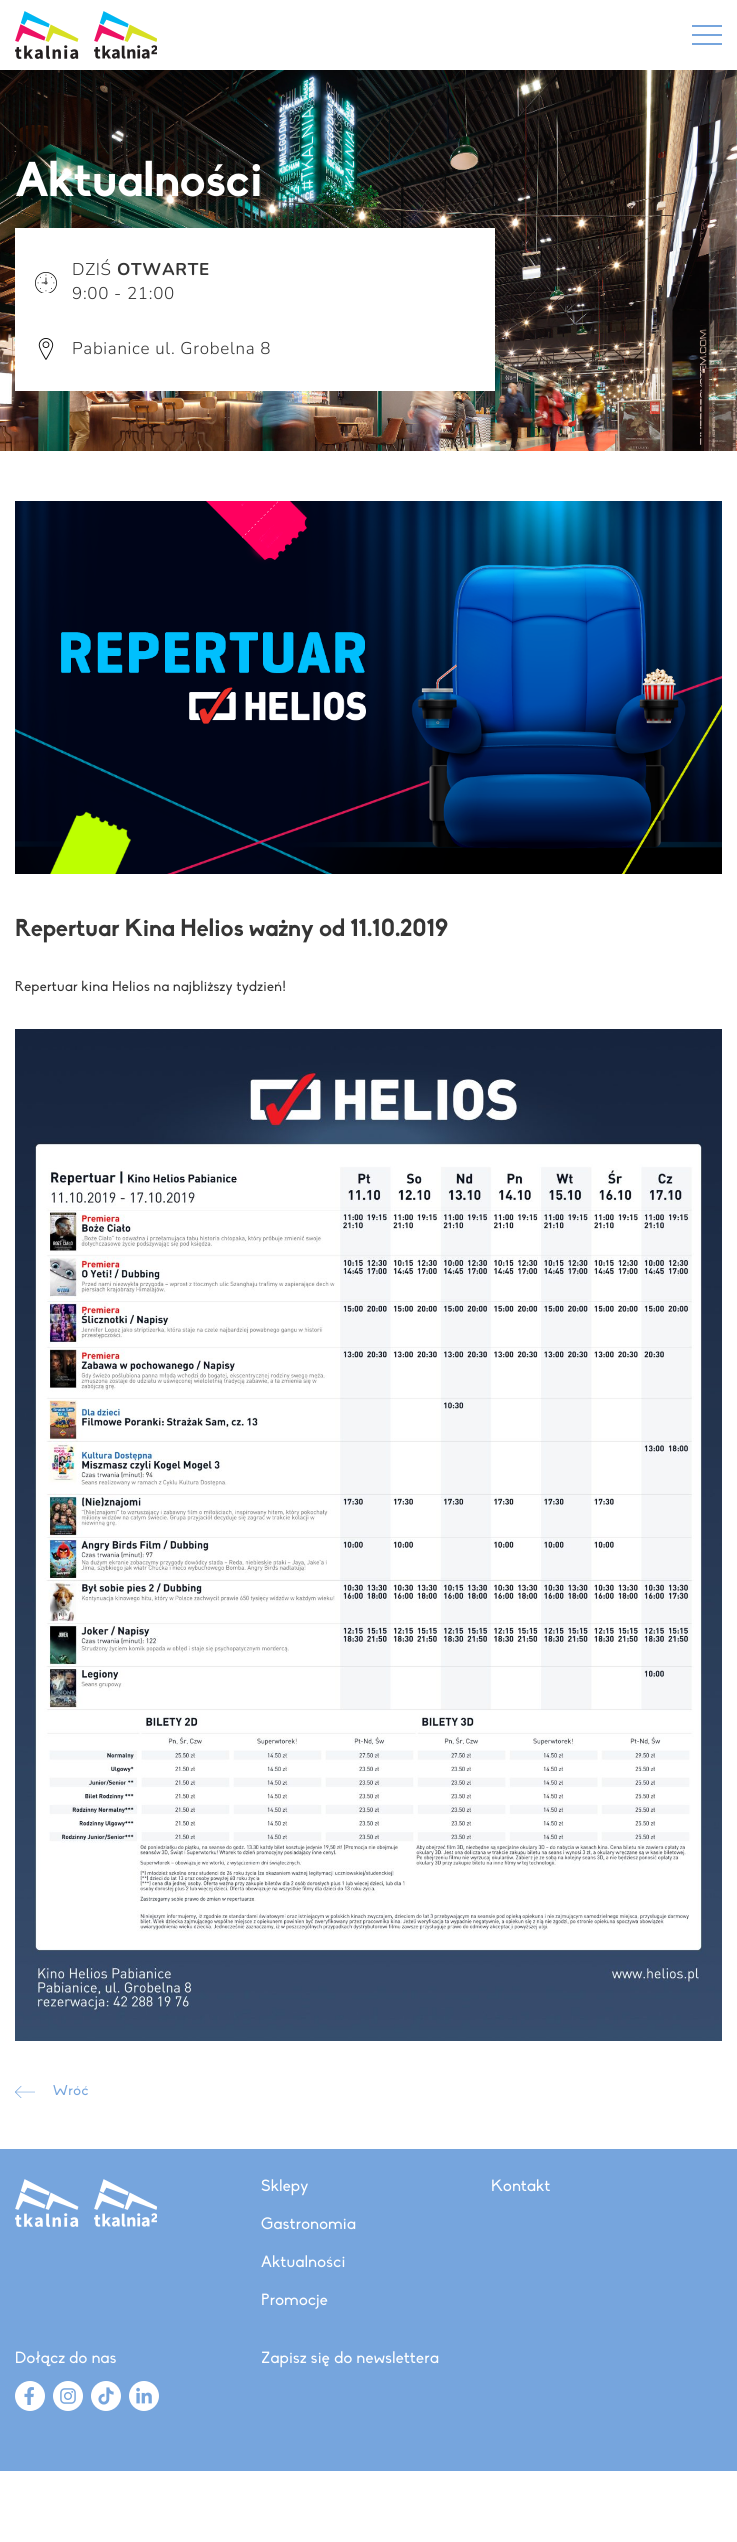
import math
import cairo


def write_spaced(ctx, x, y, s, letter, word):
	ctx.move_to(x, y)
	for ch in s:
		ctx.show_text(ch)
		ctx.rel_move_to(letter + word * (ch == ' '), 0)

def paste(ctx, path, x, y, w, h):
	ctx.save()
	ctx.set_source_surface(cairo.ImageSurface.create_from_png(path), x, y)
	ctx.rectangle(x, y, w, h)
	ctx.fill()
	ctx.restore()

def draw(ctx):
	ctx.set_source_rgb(1, 1, 1)
	ctx.paint()
	paste(ctx, 'media/1.png', 15, 11, 64, 48)
	paste(ctx, 'media/2.png', 94, 11, 63, 48)
	ctx.set_source_rgb(0.463, 0.647, 0.867)
	ctx.rectangle(692, 25, 30, 2)
	ctx.rectangle(692, 34, 30, 2)
	ctx.rectangle(692, 43, 30, 2)
	ctx.fill()
	paste(ctx, 'media/3.png', 0, 70, 737, 381)
	ctx.select_font_face('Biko', cairo.FONT_SLANT_NORMAL, cairo.FONT_WEIGHT_BOLD)
	ctx.set_font_size(48)
	ctx.set_source_rgb(1, 1, 1)
	write_spaced(ctx, 15, 196, 'Aktualności', -0.75, 0)
	ctx.rectangle(15, 228, 480, 163)
	ctx.fill()
	paste(ctx, 'media/4.png', 35, 272, 22, 21)
	ctx.select_font_face('Nunito Light')
	ctx.set_font_size(17)
	ctx.set_source_rgb(0.208, 0.208, 0.208)
	write_spaced(ctx, 72, 275, 'DZIŚ', 0.7, 0)
	ctx.select_font_face('Nunito', cairo.FONT_SLANT_NORMAL, cairo.FONT_WEIGHT_BOLD)
	write_spaced(ctx, 117, 275, 'OTWARTE', 0.7, 0)
	ctx.select_font_face('Nunito Light')
	write_spaced(ctx, 72, 299, '9:00 - 21:00', 0.7, 0)
	paste(ctx, 'media/5.png', 38, 338, 16, 22)
	write_spaced(ctx, 72, 354, 'Pabianice ul. Grobelna 8', 0.7, 0)
	paste(ctx, 'media/6.png', 15, 501, 707, 373)
	ctx.select_font_face('Biko', cairo.FONT_SLANT_NORMAL, cairo.FONT_WEIGHT_BOLD)
	ctx.set_font_size(24)
	write_spaced(ctx, 15, 936, 'Repertuar Kina Helios ważny od 11.10.2019', -0.3, 0)
	ctx.select_font_face('Biko')
	ctx.set_font_size(14)
	write_spaced(ctx, 15, 991, 'Repertuar kina Helios na najbliższy tydzień!', 0.3, 0)
	paste(ctx, 'media/7.png', 15, 1029, 707, 1012)
	paste(ctx, 'media/8.png', 15, 2085, 20, 13)
	ctx.set_source_rgb(0.463, 0.647, 0.867)
	write_spaced(ctx, 53, 2095, 'Wróć', 0.5, 0)
	ctx.rectangle(0, 2149, 737, 322)
	ctx.fill()
	paste(ctx, 'media/9.png', 15, 2179, 64, 48)
	paste(ctx, 'media/10.png', 94, 2179, 63, 48)
	ctx.set_font_size(16)
	ctx.set_source_rgb(1, 1, 1)
	for x, y, s in [
		(261, 2191, 'Sklepy'),
		(491, 2191, 'Kontakt'),
		(261, 2229, 'Gastronomia'),
		(261, 2267, 'Aktualności'),
		(261, 2305, 'Promocje'),
		(15, 2363, 'Dołącz do nas'),
	]:
		write_spaced(ctx, x, y, s, 0.3, 0)
	paste(ctx, 'media/11.png', 15, 2381, 30, 30)
	paste(ctx, 'media/12.png', 53, 2381, 30, 30)
	paste(ctx, 'media/13.png', 91, 2381, 30, 30)
	paste(ctx, 'media/14.png', 129, 2381, 30, 30)
	write_spaced(ctx, 261, 2363, 'Zapisz się do newslettera', 0.3, 0)


surface = cairo.ImageSurface(cairo.FORMAT_RGB24, 737, 2542)
ctx = cairo.Context(surface)
options = cairo.FontOptions()
options.set_hint_metrics(cairo.HINT_METRICS_OFF)
options.set_hint_style(cairo.HINT_STYLE_NONE)
ctx.set_font_options(options)
ctx.set_miter_limit(4)
draw(ctx)
surface.write_to_png('image.png')
